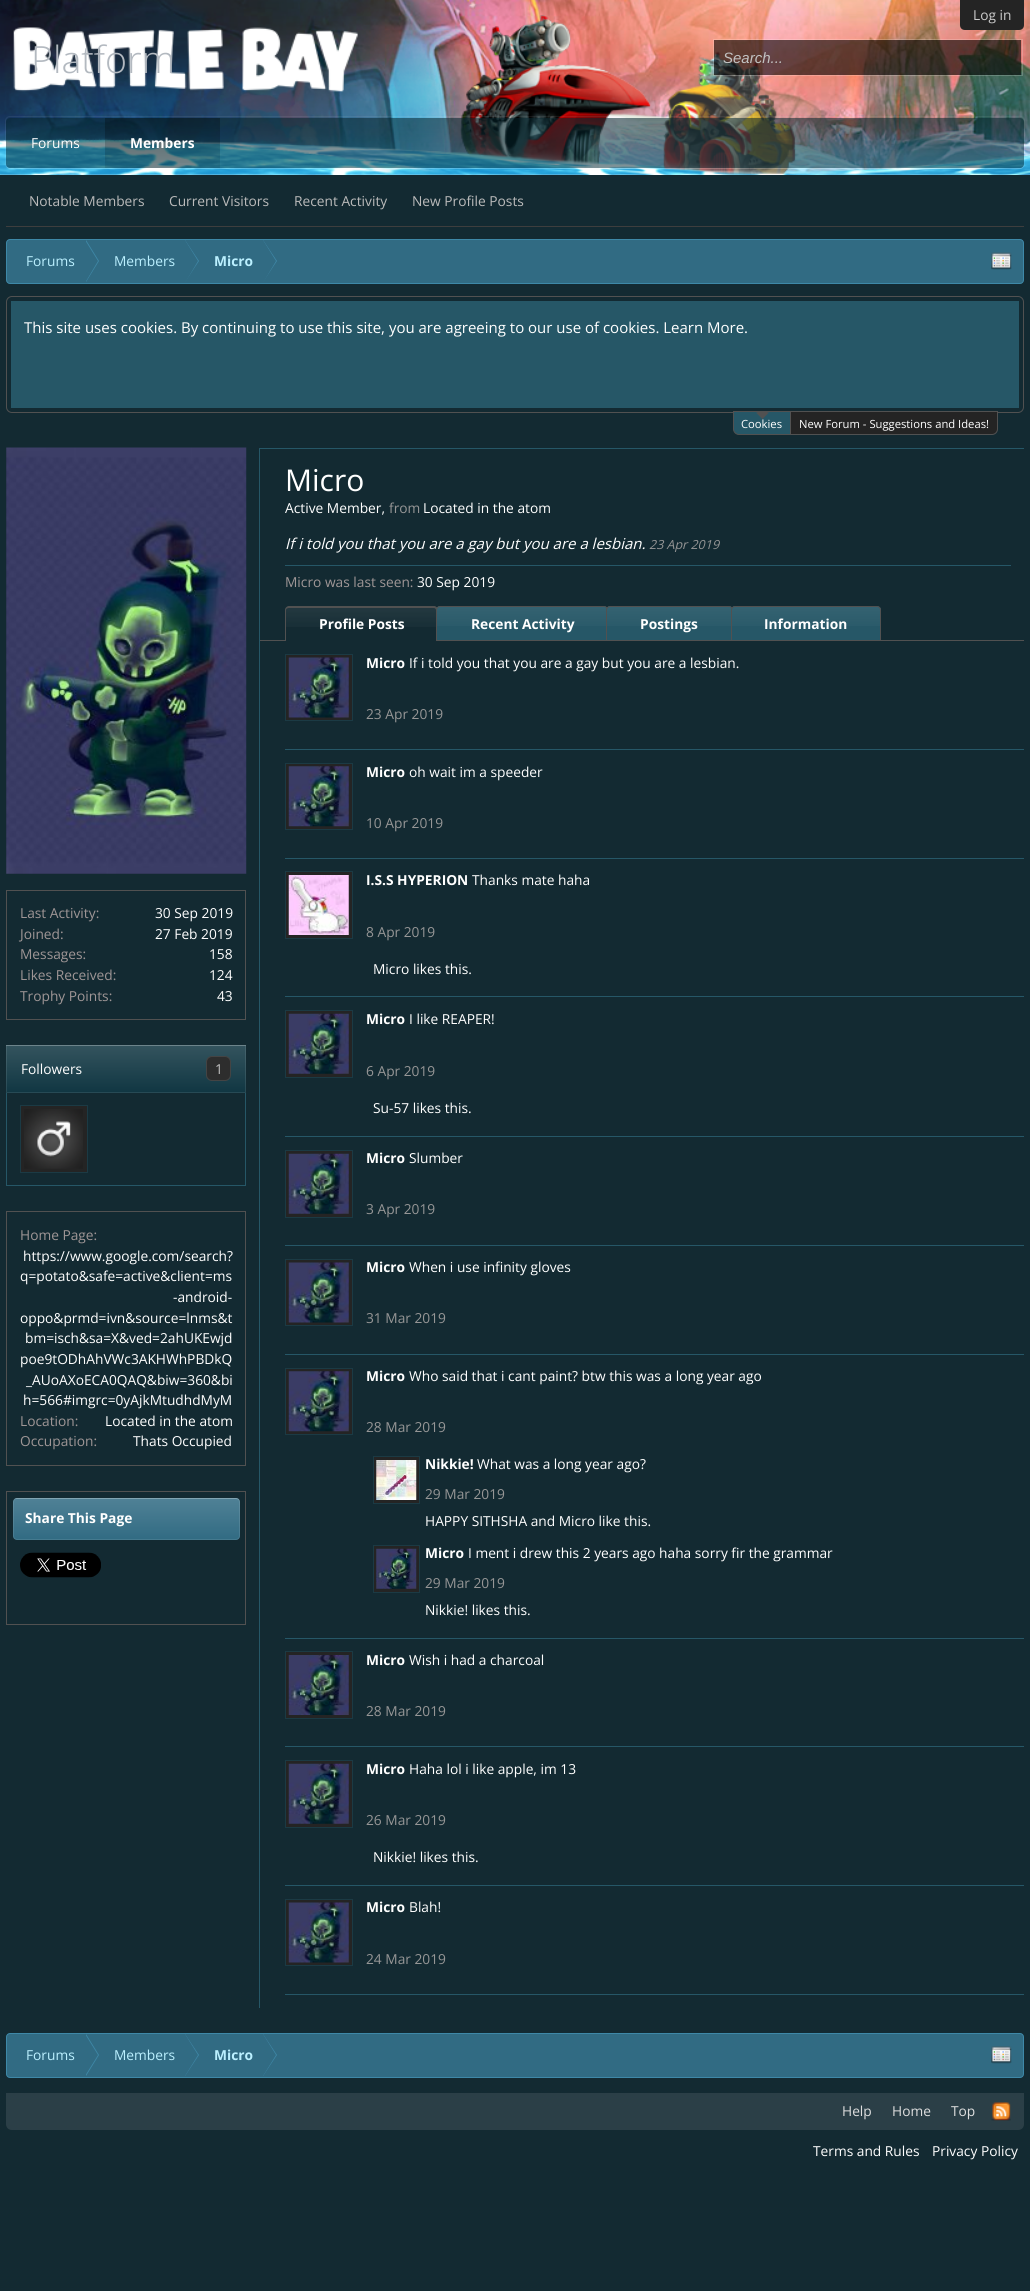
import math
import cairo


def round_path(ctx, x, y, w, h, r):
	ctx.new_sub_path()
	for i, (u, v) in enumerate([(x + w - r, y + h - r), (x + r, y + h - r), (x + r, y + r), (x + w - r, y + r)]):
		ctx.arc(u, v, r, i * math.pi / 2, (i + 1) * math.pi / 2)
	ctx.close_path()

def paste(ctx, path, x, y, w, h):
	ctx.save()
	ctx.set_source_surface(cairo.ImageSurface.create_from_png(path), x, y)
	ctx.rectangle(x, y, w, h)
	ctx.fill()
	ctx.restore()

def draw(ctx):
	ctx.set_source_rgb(0.075, 0.165, 0.196)
	ctx.paint()
	paste(ctx, 'media/1.png', 0, 0, 1030, 175)
	ctx.set_source_rgb(0.141, 0.141, 0.141)
	ctx.new_path()
	ctx.move_to(960, 0)
	ctx.line_to(1024, 0)
	ctx.line_to(1024, 25)
	ctx.curve_to(1024, 28, 1022, 30, 1019, 30)
	ctx.line_to(965, 30)
	ctx.curve_to(962, 30, 960, 28, 960, 25)
	ctx.close_path()
	ctx.fill()
	ctx.select_font_face('Open Sans')
	ctx.set_font_size(13.75)
	ctx.set_source_rgb(0.796, 0.796, 0.796)
	ctx.move_to(973, 20)
	ctx.show_text('Log in')
	ctx.set_source_rgba(1, 1, 1, 0.2)
	ctx.rectangle(0, 174, 1030, 1)
	ctx.fill()
	paste(ctx, 'media/2.png', 13, 27, 345, 65)
	ctx.select_font_face('Open Sans Light')
	ctx.set_font_size(37.5)
	ctx.set_source_rgb(0.702, 0.725, 0.753)
	ctx.move_to(31, 73)
	ctx.show_text('Platform')
	ctx.rectangle(713.5, 39.5, 309, 36)
	ctx.set_source_rgba(1, 1, 1, 0.2)
	ctx.set_line_width(1)
	ctx.stroke()
	ctx.set_source_rgba(0, 0, 0, 0.6)
	ctx.rectangle(714, 40, 307, 35)
	ctx.fill()
	ctx.select_font_face('Liberation Sans', cairo.FONT_SLANT_ITALIC)
	ctx.set_font_size(15)
	ctx.set_source_rgb(0.761, 0.761, 0.761)
	ctx.move_to(723, 63)
	ctx.show_text('Search...')
	round_path(ctx, 5.5, 116.5, 1019, 52, 4.5)
	ctx.set_source_rgba(1, 1, 1, 0.07)
	ctx.stroke()
	ctx.set_source_rgba(1, 1, 1, 0.15)
	ctx.new_path()
	ctx.move_to(6, 122)
	ctx.line_to(6, 165)
	ctx.curve_to(6, 167, 8, 169, 10, 169)
	ctx.line_to(1020, 169)
	ctx.curve_to(1022, 169, 1024, 167, 1024, 165)
	ctx.line_to(1024, 122)
	ctx.line_to(1024, 164)
	ctx.curve_to(1024, 166, 1022, 168, 1020, 168)
	ctx.line_to(10, 168)
	ctx.curve_to(8, 168, 6, 166, 6, 164)
	ctx.close_path()
	ctx.fill()
	ctx.set_source_rgba(0.031, 0.173, 0.216, 0.5)
	round_path(ctx, 6, 118, 1018, 50, 4)
	ctx.fill()
	gradient = cairo.LinearGradient(515, 117, 515, 168)
	gradient.add_color_stop_rgba(0, 0, 0, 0, 0.1)
	gradient.add_color_stop_rgba(1, 0, 0, 0, 0)
	ctx.set_source(gradient)
	round_path(ctx, 6, 118, 1018, 50, 4)
	ctx.fill()
	ctx.set_source_rgba(0, 0, 0, 0.1)
	ctx.rectangle(105, 118, 115, 50)
	ctx.fill()
	gradient = cairo.LinearGradient(163, 118, 163, 168)
	gradient.add_color_stop_rgba(0, 0, 0, 0, 0.2)
	gradient.add_color_stop_rgba(1, 0, 0, 0, 0)
	ctx.set_source(gradient)
	ctx.rectangle(105, 118, 115, 45)
	ctx.fill()
	ctx.select_font_face('Open Sans', cairo.FONT_SLANT_NORMAL, cairo.FONT_WEIGHT_BOLD)
	ctx.set_font_size(13.75)
	ctx.set_source_rgb(1, 1, 1)
	ctx.move_to(130, 148)
	ctx.show_text('Members')
	ctx.set_source_rgb(0.243, 0.243, 0.243)
	ctx.rectangle(6, 226, 1018, 1)
	ctx.fill()
	ctx.select_font_face('Open Sans')
	ctx.set_source_rgb(0.733, 0.733, 0.733)
	for x, y, s in [
		(29, 206, 'Notable Members'),
		(169, 206, 'Current Visitors'),
		(294, 206, 'Recent Activity'),
		(412, 206, 'New Profile Posts'),
	]:
		ctx.move_to(x, y)
		ctx.show_text(s)
	ctx.set_source_rgb(1, 1, 1)
	ctx.move_to(31, 148)
	ctx.show_text('Forums')
	ctx.set_source_rgb(0.192, 0.42, 0.514)
	round_path(ctx, 6.5, 239.5, 1017, 44, 3.5)
	ctx.fill_preserve()
	ctx.set_source_rgb(0.243, 0.533, 0.655)
	ctx.stroke()
	ctx.set_source_rgb(0.733, 0.941, 1)
	ctx.move_to(26, 266)
	ctx.show_text('Forums')
	ctx.set_source_rgb(0.243, 0.533, 0.655)
	ctx.new_path()
	ctx.move_to(86, 282)
	ctx.line_to(86, 240)
	ctx.line_to(99, 261)
	ctx.close_path()
	ctx.fill()
	ctx.set_source_rgb(0.192, 0.42, 0.514)
	ctx.new_path()
	ctx.move_to(85, 240)
	ctx.line_to(98, 261)
	ctx.line_to(85, 283)
	ctx.line_to(84, 283)
	ctx.line_to(84, 240)
	ctx.close_path()
	ctx.fill()
	ctx.set_source_rgb(0.733, 0.941, 1)
	ctx.move_to(114, 266)
	ctx.show_text('Members')
	ctx.set_source_rgb(0.243, 0.533, 0.655)
	ctx.new_path()
	ctx.move_to(185, 282)
	ctx.line_to(185, 240)
	ctx.line_to(199, 261)
	ctx.close_path()
	ctx.fill()
	ctx.set_source_rgb(0.192, 0.42, 0.514)
	ctx.new_path()
	ctx.move_to(185, 240)
	ctx.line_to(198, 261)
	ctx.line_to(185, 283)
	ctx.line_to(184, 283)
	ctx.line_to(184, 240)
	ctx.close_path()
	ctx.fill()
	ctx.select_font_face('Open Sans', cairo.FONT_SLANT_NORMAL, cairo.FONT_WEIGHT_BOLD)
	ctx.set_source_rgb(0.733, 0.941, 1)
	ctx.move_to(214, 266)
	ctx.show_text('Micro')
	ctx.set_source_rgb(0.243, 0.533, 0.655)
	ctx.new_path()
	ctx.move_to(263, 282)
	ctx.line_to(263, 240)
	ctx.line_to(277, 261)
	ctx.close_path()
	ctx.fill()
	ctx.set_source_rgb(0.192, 0.42, 0.514)
	ctx.new_path()
	ctx.move_to(263, 240)
	ctx.line_to(276, 261)
	ctx.line_to(263, 283)
	ctx.line_to(262, 283)
	ctx.line_to(262, 240)
	ctx.close_path()
	ctx.fill()
	paste(ctx, 'media/3.png', 991, 252, 21, 18)
	round_path(ctx, 6.5, 296.5, 1017, 116, 5.5)
	ctx.set_source_rgb(0.318, 0.318, 0.318)
	ctx.stroke()
	ctx.set_source_rgb(0.149, 0.341, 0.404)
	ctx.rectangle(11, 301, 1008, 107)
	ctx.fill()
	ctx.select_font_face('Open Sans')
	ctx.set_font_size(15)
	ctx.set_source_rgb(1, 1, 1)
	ctx.move_to(24, 333)
	ctx.show_text('This site uses cookies. By continuing to use this site, you are agreeing to our use of cookies. Learn More.')
	ctx.set_source_rgb(0.149, 0.341, 0.404)
	ctx.new_path()
	ctx.move_to(733.5, 411.5)
	ctx.line_to(790.5, 411.5)
	ctx.line_to(790.5, 434.5)
	ctx.line_to(739, 434.5)
	ctx.curve_to(736, 434.5, 733.5, 432, 733.5, 429)
	ctx.close_path()
	ctx.fill_preserve()
	ctx.set_source_rgb(0.318, 0.318, 0.318)
	ctx.stroke()
	ctx.new_path()
	ctx.move_to(756, 412.5)
	ctx.line_to(769, 412.5)
	ctx.line_to(762.5, 419)
	ctx.close_path()
	ctx.fill()
	ctx.new_path()
	ctx.move_to(756, 411)
	ctx.line_to(769, 411)
	ctx.line_to(762.5, 417.5)
	ctx.close_path()
	ctx.fill()
	ctx.set_font_size(11.25)
	ctx.set_source_rgb(1, 1, 1)
	ctx.move_to(741, 428)
	ctx.show_text('Cookies')
	ctx.set_source_rgb(0.141, 0.141, 0.141)
	ctx.new_path()
	ctx.move_to(790.5, 411.5)
	ctx.line_to(997.5, 411.5)
	ctx.line_to(997.5, 429)
	ctx.curve_to(997.5, 432, 995, 434.5, 992, 434.5)
	ctx.line_to(790.5, 434.5)
	ctx.close_path()
	ctx.fill_preserve()
	ctx.set_source_rgb(0.318, 0.318, 0.318)
	ctx.stroke()
	ctx.set_source_rgb(1, 1, 1)
	ctx.move_to(799, 428)
	ctx.show_text('New Forum - Suggestions and Ideas!')
	paste(ctx, 'media/4.png', 6, 447, 241, 427)
	ctx.rectangle(6.5, 890.5, 239, 129)
	ctx.set_source_rgb(0.318, 0.318, 0.318)
	ctx.stroke()
	ctx.set_font_size(13.75)
	ctx.set_source_rgb(0.624, 0.588, 0.588)
	ctx.move_to(20, 918)
	ctx.show_text('Last Activity:')
	ctx.set_source_rgb(1, 1, 1)
	ctx.move_to(155, 918)
	ctx.show_text('30 Sep 2019')
	ctx.set_source_rgb(0.624, 0.588, 0.588)
	ctx.move_to(20, 939)
	ctx.show_text('Joined:')
	ctx.set_source_rgb(1, 1, 1)
	ctx.move_to(155, 939)
	ctx.show_text('27 Feb 2019')
	ctx.set_source_rgb(0.624, 0.588, 0.588)
	ctx.move_to(20, 959)
	ctx.show_text('Messages:')
	ctx.set_source_rgb(1, 1, 1)
	ctx.move_to(209, 959)
	ctx.show_text('158')
	ctx.set_source_rgb(0.624, 0.588, 0.588)
	ctx.move_to(20, 980)
	ctx.show_text('Likes Received:')
	ctx.set_source_rgb(1, 1, 1)
	ctx.move_to(209, 980)
	ctx.show_text('124')
	ctx.set_source_rgb(0.624, 0.588, 0.588)
	ctx.move_to(20, 1001)
	ctx.show_text('Trophy Points:')
	ctx.set_source_rgb(1, 1, 1)
	ctx.move_to(217, 1001)
	ctx.show_text('43')
	gradient = cairo.LinearGradient(126, 1045, 126, 1093)
	gradient.add_color_stop_rgba(0, 0.204, 0.329, 0.369, 1)
	gradient.add_color_stop_rgba(1, 0.063, 0.212, 0.259, 1)
	ctx.set_source(gradient)
	ctx.rectangle(6, 1046, 240, 47)
	ctx.fill()
	ctx.rectangle(6.5, 1045.5, 239, 47)
	ctx.set_source_rgba(1, 1, 1, 0.1)
	ctx.stroke()
	ctx.set_source_rgb(0.427, 0.518, 0.545)
	ctx.rectangle(6, 1045, 240, 1)
	ctx.fill()
	ctx.set_source_rgb(1, 1, 1)
	ctx.move_to(21, 1074)
	ctx.show_text('Followers')
	ctx.set_source_rgb(0.176, 0.176, 0.176)
	round_path(ctx, 206.5, 1056.5, 24, 24, 5.5)
	ctx.fill_preserve()
	ctx.set_source_rgb(0.267, 0.267, 0.267)
	ctx.stroke()
	ctx.set_source_rgb(0.761, 0.761, 0.761)
	ctx.move_to(215, 1074)
	ctx.show_text('1')
	ctx.set_source_rgb(0.149, 0.341, 0.404)
	ctx.rectangle(245, 1093, 1, 93)
	ctx.rectangle(6, 1185, 240, 1)
	ctx.rectangle(6, 1093, 1, 93)
	ctx.fill()
	ctx.set_source_rgb(0.141, 0.141, 0.141)
	ctx.rectangle(21, 1106, 66, 66)
	ctx.fill()
	paste(ctx, 'media/5.png', 24, 1109, 59, 60)
	ctx.rectangle(20.5, 1105.5, 67, 67)
	ctx.set_source_rgb(0.106, 0.227, 0.267)
	ctx.stroke()
	ctx.rectangle(6.5, 1211.5, 239, 254)
	ctx.set_source_rgb(0.318, 0.318, 0.318)
	ctx.stroke()
	ctx.set_source_rgb(0.624, 0.588, 0.588)
	ctx.move_to(20, 1240)
	ctx.show_text('Home Page:')
	ctx.set_source_rgb(1, 1, 1)
	for x, y, s in [
		(23, 1261, 'https://www.google.com/search?'),
		(20, 1281, 'q=potato&safe=active&client=ms'),
		(173, 1302, '-android-'),
		(20, 1323, 'oppo&prmd=ivn&source=lnms&t'),
		(25, 1343, 'bm=isch&sa=X&ved=2ahUKEwjd'),
		(20, 1364, 'poe9tODhAhVWc3AKHWhPBDkQ'),
		(26, 1385, '_AUoAXoECA0QAQ&biw=360&bi'),
		(23, 1405, 'h=566#imgrc=0yAjkMtudhdMyM'),
	]:
		ctx.move_to(x, y)
		ctx.show_text(s)
	ctx.set_source_rgb(0.624, 0.588, 0.588)
	ctx.move_to(20, 1426)
	ctx.show_text('Location:')
	ctx.set_source_rgb(1, 1, 1)
	ctx.move_to(105, 1426)
	ctx.show_text('Located in the atom')
	ctx.set_source_rgb(0.624, 0.588, 0.588)
	ctx.move_to(20, 1446)
	ctx.show_text('Occupation:')
	ctx.set_source_rgb(1, 1, 1)
	ctx.move_to(133, 1446)
	ctx.show_text('Thats Occupied')
	ctx.rectangle(6.5, 1491.5, 239, 133)
	ctx.set_source_rgb(0.318, 0.318, 0.318)
	ctx.stroke()
	ctx.set_source_rgb(0.192, 0.42, 0.514)
	round_path(ctx, 13, 1498, 227, 42, 4)
	ctx.fill()
	gradient = cairo.LinearGradient(126, 1498, 126, 1540)
	gradient.add_color_stop_rgba(0, 1, 1, 1, 0.15)
	gradient.add_color_stop_rgba(1, 1, 1, 1, 0)
	ctx.set_source(gradient)
	round_path(ctx, 13, 1498, 227, 42, 4)
	ctx.fill()
	round_path(ctx, 13.5, 1498.5, 226, 41, 3.5)
	ctx.set_source_rgba(1, 1, 1, 0.1)
	ctx.stroke()
	ctx.set_source_rgba(1, 1, 1, 0.2)
	ctx.new_path()
	ctx.move_to(16, 1499)
	ctx.line_to(236, 1499)
	ctx.curve_to(238, 1499, 240, 1500, 240, 1502)
	ctx.curve_to(240, 1500, 238, 1498, 236, 1498)
	ctx.line_to(17, 1498)
	ctx.curve_to(16, 1498, 15, 1499, 14, 1499)
	ctx.close_path()
	ctx.fill()
	ctx.select_font_face('Open Sans', cairo.FONT_SLANT_NORMAL, cairo.FONT_WEIGHT_BOLD)
	ctx.set_source_rgb(1, 1, 1)
	ctx.move_to(25, 1523)
	ctx.show_text('Share This Page')
	paste(ctx, 'media/6.png', 20, 1552, 81, 26)
	ctx.set_source_rgb(0.149, 0.341, 0.404)
	ctx.rectangle(259, 448, 1, 1560)
	ctx.fill()
	ctx.rectangle(260, 448, 764, 1)
	ctx.fill()
	ctx.select_font_face('Open Sans')
	ctx.set_font_size(30)
	ctx.set_source_rgb(1, 1, 1)
	ctx.move_to(285, 491)
	ctx.show_text('Micro')
	ctx.set_font_size(13.75)
	ctx.move_to(285, 513)
	ctx.show_text('Active Member,')
	ctx.set_source_rgb(0.588, 0.588, 0.588)
	ctx.move_to(389, 513)
	ctx.show_text('from')
	ctx.set_source_rgb(1, 1, 1)
	ctx.move_to(423, 513)
	ctx.show_text('Located in the atom')
	ctx.select_font_face('Open Sans', cairo.FONT_SLANT_ITALIC)
	ctx.set_font_size(15)
	ctx.move_to(285, 549)
	ctx.show_text('If i told you that you are a gay but you are a lesbian.')
	ctx.set_font_size(12.5)
	ctx.set_source_rgb(0.588, 0.588, 0.588)
	ctx.move_to(649, 549)
	ctx.show_text('23 Apr 2019')
	ctx.set_source_rgb(0.149, 0.341, 0.404)
	ctx.rectangle(285, 565, 726, 1)
	ctx.fill()
	ctx.select_font_face('Open Sans')
	ctx.set_font_size(13.75)
	ctx.set_source_rgb(0.624, 0.588, 0.588)
	ctx.move_to(285, 587)
	ctx.show_text('Micro was last seen:')
	ctx.set_source_rgb(1, 1, 1)
	ctx.move_to(417, 587)
	ctx.show_text('30 Sep 2019')
	ctx.set_source_rgb(0.318, 0.318, 0.318)
	ctx.rectangle(260, 640, 764, 1)
	ctx.fill()
	ctx.set_source_rgb(0.075, 0.165, 0.196)
	ctx.new_path()
	ctx.move_to(289, 606)
	ctx.line_to(434, 606)
	ctx.curve_to(436, 606, 438, 608, 438, 610)
	ctx.line_to(438, 641)
	ctx.line_to(285, 641)
	ctx.line_to(285, 610)
	ctx.curve_to(285, 608, 287, 606, 289, 606)
	ctx.close_path()
	ctx.fill()
	paste(ctx, 'media/7.png', 285, 606, 152, 21)
	ctx.set_source_rgb(0.318, 0.318, 0.318)
	ctx.set_fill_rule(cairo.FILL_RULE_EVEN_ODD)
	ctx.new_path()
	ctx.move_to(289, 606)
	ctx.line_to(434, 606)
	ctx.curve_to(436, 606, 438, 608, 438, 610)
	ctx.line_to(438, 641)
	ctx.line_to(285, 641)
	ctx.line_to(285, 610)
	ctx.curve_to(285, 608, 287, 606, 289, 606)
	ctx.close_path()
	ctx.move_to(289, 608)
	ctx.line_to(434, 608)
	ctx.curve_to(435, 608, 436, 609, 436, 610)
	ctx.line_to(436, 641)
	ctx.line_to(286, 641)
	ctx.line_to(286, 610)
	ctx.curve_to(286, 609, 287, 608, 289, 608)
	ctx.close_path()
	ctx.fill()
	ctx.select_font_face('Open Sans', cairo.FONT_SLANT_NORMAL, cairo.FONT_WEIGHT_BOLD)
	ctx.set_source_rgb(1, 1, 1)
	ctx.move_to(319, 629)
	ctx.show_text('Profile Posts')
	ctx.set_source_rgb(0.149, 0.341, 0.404)
	ctx.new_path()
	ctx.move_to(440, 606)
	ctx.line_to(604, 606)
	ctx.curve_to(606, 606, 608, 608, 608, 610)
	ctx.line_to(608, 641)
	ctx.line_to(436, 641)
	ctx.line_to(436, 610)
	ctx.curve_to(436, 608, 438, 606, 440, 606)
	ctx.close_path()
	ctx.fill()
	paste(ctx, 'media/8.png', 436, 606, 171, 20)
	ctx.new_path()
	ctx.move_to(440, 606.5)
	ctx.line_to(604, 606.5)
	ctx.curve_to(606, 606.5, 607.5, 608, 607.5, 610)
	ctx.line_to(607.5, 640.5)
	ctx.line_to(436.5, 640.5)
	ctx.line_to(436.5, 610)
	ctx.curve_to(436.5, 608, 438, 606.5, 440, 606.5)
	ctx.close_path()
	ctx.set_source_rgb(0.318, 0.318, 0.318)
	ctx.stroke()
	ctx.set_source_rgb(1, 1, 1)
	ctx.move_to(471, 629)
	ctx.show_text('Recent Activity')
	ctx.set_source_rgb(0.149, 0.341, 0.404)
	ctx.new_path()
	ctx.move_to(610, 606)
	ctx.line_to(729, 606)
	ctx.curve_to(731, 606, 733, 608, 733, 610)
	ctx.line_to(733, 641)
	ctx.line_to(606, 641)
	ctx.line_to(606, 610)
	ctx.curve_to(606, 608, 608, 606, 610, 606)
	ctx.close_path()
	ctx.fill()
	paste(ctx, 'media/9.png', 606, 606, 126, 20)
	ctx.new_path()
	ctx.move_to(610, 606.5)
	ctx.line_to(729, 606.5)
	ctx.curve_to(731, 606.5, 732.5, 608, 732.5, 610)
	ctx.line_to(732.5, 640.5)
	ctx.line_to(606.5, 640.5)
	ctx.line_to(606.5, 610)
	ctx.curve_to(606.5, 608, 608, 606.5, 610, 606.5)
	ctx.close_path()
	ctx.set_source_rgb(0.318, 0.318, 0.318)
	ctx.stroke()
	ctx.set_source_rgb(1, 1, 1)
	ctx.move_to(640, 629)
	ctx.show_text('Postings')
	ctx.set_source_rgb(0.149, 0.341, 0.404)
	ctx.new_path()
	ctx.move_to(735, 606)
	ctx.line_to(877, 606)
	ctx.curve_to(879, 606, 881, 608, 881, 610)
	ctx.line_to(881, 641)
	ctx.line_to(731, 641)
	ctx.line_to(731, 610)
	ctx.curve_to(731, 608, 733, 606, 735, 606)
	ctx.close_path()
	ctx.fill()
	paste(ctx, 'media/10.png', 731, 606, 150, 20)
	ctx.new_path()
	ctx.move_to(735, 606.5)
	ctx.line_to(877, 606.5)
	ctx.curve_to(879, 606.5, 880.5, 608, 880.5, 610)
	ctx.line_to(880.5, 640.5)
	ctx.line_to(731.5, 640.5)
	ctx.line_to(731.5, 610)
	ctx.curve_to(731.5, 608, 733, 606.5, 735, 606.5)
	ctx.close_path()
	ctx.set_source_rgb(0.318, 0.318, 0.318)
	ctx.stroke()
	ctx.set_source_rgb(1, 1, 1)
	ctx.move_to(764, 629)
	ctx.show_text('Information')
	ctx.set_source_rgb(0.149, 0.341, 0.404)
	ctx.rectangle(285, 749, 739, 1)
	ctx.fill()
	ctx.set_source_rgb(0.141, 0.141, 0.141)
	ctx.rectangle(285.5, 654.5, 67, 66)
	ctx.fill_preserve()
	ctx.set_source_rgb(0.106, 0.227, 0.267)
	ctx.stroke()
	paste(ctx, 'media/11.png', 288, 657, 61, 61)
	ctx.set_source_rgb(1, 1, 1)
	ctx.move_to(366, 668)
	ctx.show_text('Micro')
	ctx.select_font_face('Open Sans')
	ctx.move_to(409, 668)
	ctx.show_text('If i told you that you are a gay but you are a lesbian.')
	ctx.set_source_rgb(0.588, 0.588, 0.588)
	ctx.move_to(366, 719)
	ctx.show_text('23 Apr 2019')
	ctx.set_source_rgb(0.149, 0.341, 0.404)
	ctx.rectangle(285, 858, 739, 1)
	ctx.fill()
	ctx.set_source_rgb(0.141, 0.141, 0.141)
	ctx.rectangle(285.5, 763.5, 67, 66)
	ctx.fill_preserve()
	ctx.set_source_rgb(0.106, 0.227, 0.267)
	ctx.stroke()
	paste(ctx, 'media/12.png', 288, 766, 61, 61)
	ctx.select_font_face('Open Sans', cairo.FONT_SLANT_NORMAL, cairo.FONT_WEIGHT_BOLD)
	ctx.set_source_rgb(1, 1, 1)
	ctx.move_to(366, 777)
	ctx.show_text('Micro')
	ctx.select_font_face('Open Sans')
	ctx.move_to(409, 777)
	ctx.show_text('oh wait im a speeder')
	ctx.set_source_rgb(0.588, 0.588, 0.588)
	ctx.move_to(366, 828)
	ctx.show_text('10 Apr 2019')
	ctx.set_source_rgb(0.149, 0.341, 0.404)
	ctx.rectangle(285, 996, 739, 1)
	ctx.fill()
	ctx.set_source_rgb(0.141, 0.141, 0.141)
	ctx.rectangle(285.5, 871.5, 67, 67)
	ctx.fill_preserve()
	ctx.set_source_rgb(0.106, 0.227, 0.267)
	ctx.stroke()
	paste(ctx, 'media/13.png', 288, 875, 61, 60)
	ctx.select_font_face('Open Sans', cairo.FONT_SLANT_NORMAL, cairo.FONT_WEIGHT_BOLD)
	ctx.set_source_rgb(1, 1, 1)
	ctx.move_to(366, 885)
	ctx.show_text('I.S.S HYPERION')
	ctx.select_font_face('Open Sans')
	ctx.move_to(472, 885)
	ctx.show_text('Thanks mate haha')
	ctx.set_source_rgb(0.588, 0.588, 0.588)
	ctx.move_to(366, 937)
	ctx.show_text('8 Apr 2019')
	ctx.set_source_rgb(1, 1, 1)
	ctx.move_to(373, 974)
	ctx.show_text('Micro likes this.')
	ctx.set_source_rgb(0.149, 0.341, 0.404)
	ctx.rectangle(285, 1136, 739, 1)
	ctx.fill()
	ctx.set_source_rgb(0.141, 0.141, 0.141)
	ctx.rectangle(285.5, 1010.5, 67, 67)
	ctx.fill_preserve()
	ctx.set_source_rgb(0.106, 0.227, 0.267)
	ctx.stroke()
	paste(ctx, 'media/14.png', 288, 1013, 61, 61)
	ctx.select_font_face('Open Sans', cairo.FONT_SLANT_NORMAL, cairo.FONT_WEIGHT_BOLD)
	ctx.set_source_rgb(1, 1, 1)
	ctx.move_to(366, 1024)
	ctx.show_text('Micro')
	ctx.select_font_face('Open Sans')
	ctx.move_to(409, 1024)
	ctx.show_text('I like REAPER!')
	ctx.set_source_rgb(0.588, 0.588, 0.588)
	ctx.move_to(366, 1076)
	ctx.show_text('6 Apr 2019')
	ctx.set_source_rgb(1, 1, 1)
	ctx.move_to(373, 1113)
	ctx.show_text('Su-57 likes this.')
	ctx.set_source_rgb(0.149, 0.341, 0.404)
	ctx.rectangle(285, 1245, 739, 1)
	ctx.fill()
	ctx.set_source_rgb(0.141, 0.141, 0.141)
	ctx.rectangle(285.5, 1150.5, 67, 67)
	ctx.fill_preserve()
	ctx.set_source_rgb(0.106, 0.227, 0.267)
	ctx.stroke()
	paste(ctx, 'media/15.png', 288, 1153, 61, 61)
	ctx.select_font_face('Open Sans', cairo.FONT_SLANT_NORMAL, cairo.FONT_WEIGHT_BOLD)
	ctx.set_source_rgb(1, 1, 1)
	ctx.move_to(366, 1163)
	ctx.show_text('Micro')
	ctx.select_font_face('Open Sans')
	ctx.move_to(409, 1163)
	ctx.show_text('Slumber')
	ctx.set_source_rgb(0.588, 0.588, 0.588)
	ctx.move_to(366, 1214)
	ctx.show_text('3 Apr 2019')
	ctx.set_source_rgb(0.149, 0.341, 0.404)
	ctx.rectangle(285, 1354, 739, 1)
	ctx.fill()
	ctx.set_source_rgb(0.141, 0.141, 0.141)
	ctx.rectangle(285.5, 1259.5, 67, 66)
	ctx.fill_preserve()
	ctx.set_source_rgb(0.106, 0.227, 0.267)
	ctx.stroke()
	paste(ctx, 'media/11.png', 288, 1262, 61, 61)
	ctx.select_font_face('Open Sans', cairo.FONT_SLANT_NORMAL, cairo.FONT_WEIGHT_BOLD)
	ctx.set_source_rgb(1, 1, 1)
	ctx.move_to(366, 1272)
	ctx.show_text('Micro')
	ctx.select_font_face('Open Sans')
	ctx.move_to(409, 1272)
	ctx.show_text('When i use infinity gloves')
	ctx.set_source_rgb(0.588, 0.588, 0.588)
	ctx.move_to(366, 1323)
	ctx.show_text('31 Mar 2019')
	ctx.set_source_rgb(0.149, 0.341, 0.404)
	ctx.rectangle(285, 1638, 739, 1)
	ctx.fill()
	ctx.set_source_rgb(0.141, 0.141, 0.141)
	ctx.rectangle(285.5, 1368.5, 67, 66)
	ctx.fill_preserve()
	ctx.set_source_rgb(0.106, 0.227, 0.267)
	ctx.stroke()
	paste(ctx, 'media/12.png', 288, 1371, 61, 61)
	ctx.select_font_face('Open Sans', cairo.FONT_SLANT_NORMAL, cairo.FONT_WEIGHT_BOLD)
	ctx.set_source_rgb(1, 1, 1)
	ctx.move_to(366, 1381)
	ctx.show_text('Micro')
	ctx.select_font_face('Open Sans')
	ctx.move_to(409, 1381)
	ctx.show_text('Who said that i cant paint? btw this was a long year ago')
	ctx.set_source_rgb(0.588, 0.588, 0.588)
	ctx.move_to(366, 1432)
	ctx.show_text('28 Mar 2019')
	ctx.set_source_rgb(0.141, 0.141, 0.141)
	ctx.rectangle(373.5, 1456.5, 46, 47)
	ctx.fill_preserve()
	ctx.set_source_rgb(0.106, 0.227, 0.267)
	ctx.stroke()
	paste(ctx, 'media/16.png', 376, 1460, 41, 40)
	ctx.select_font_face('Open Sans', cairo.FONT_SLANT_NORMAL, cairo.FONT_WEIGHT_BOLD)
	ctx.set_source_rgb(1, 1, 1)
	ctx.move_to(425, 1469)
	ctx.show_text('Nikkie!')
	ctx.select_font_face('Open Sans')
	ctx.move_to(477, 1469)
	ctx.show_text('What was a long year ago?')
	ctx.set_source_rgb(0.588, 0.588, 0.588)
	ctx.move_to(425, 1499)
	ctx.show_text('29 Mar 2019')
	ctx.set_source_rgb(1, 1, 1)
	ctx.move_to(425, 1526)
	ctx.show_text('HAPPY SITHSHA and Micro like this.')
	ctx.set_source_rgb(0.141, 0.141, 0.141)
	ctx.rectangle(373.5, 1545.5, 46, 47)
	ctx.fill_preserve()
	ctx.set_source_rgb(0.106, 0.227, 0.267)
	ctx.stroke()
	paste(ctx, 'media/17.png', 376, 1548, 41, 41)
	ctx.select_font_face('Open Sans', cairo.FONT_SLANT_NORMAL, cairo.FONT_WEIGHT_BOLD)
	ctx.set_source_rgb(1, 1, 1)
	ctx.move_to(425, 1558)
	ctx.show_text('Micro')
	ctx.select_font_face('Open Sans')
	ctx.move_to(468, 1558)
	ctx.show_text('I ment i drew this 2 years ago haha sorry fir the grammar')
	ctx.set_source_rgb(0.588, 0.588, 0.588)
	ctx.move_to(425, 1588)
	ctx.show_text('29 Mar 2019')
	ctx.set_source_rgb(1, 1, 1)
	ctx.move_to(425, 1615)
	ctx.show_text('Nikkie! likes this.')
	ctx.set_source_rgb(0.149, 0.341, 0.404)
	ctx.rectangle(285, 1746, 739, 1)
	ctx.fill()
	ctx.set_source_rgb(0.141, 0.141, 0.141)
	ctx.rectangle(285.5, 1651.5, 67, 67)
	ctx.fill_preserve()
	ctx.set_source_rgb(0.106, 0.227, 0.267)
	ctx.stroke()
	paste(ctx, 'media/18.png', 288, 1655, 61, 60)
	ctx.select_font_face('Open Sans', cairo.FONT_SLANT_NORMAL, cairo.FONT_WEIGHT_BOLD)
	ctx.set_source_rgb(1, 1, 1)
	ctx.move_to(366, 1665)
	ctx.show_text('Micro')
	ctx.select_font_face('Open Sans')
	ctx.move_to(409, 1665)
	ctx.show_text('Wish i had a charcoal')
	ctx.set_source_rgb(0.588, 0.588, 0.588)
	ctx.move_to(366, 1716)
	ctx.show_text('28 Mar 2019')
	ctx.set_source_rgb(0.149, 0.341, 0.404)
	ctx.rectangle(285, 1885, 739, 1)
	ctx.fill()
	ctx.set_source_rgb(0.141, 0.141, 0.141)
	ctx.rectangle(285.5, 1760.5, 67, 67)
	ctx.fill_preserve()
	ctx.set_source_rgb(0.106, 0.227, 0.267)
	ctx.stroke()
	paste(ctx, 'media/14.png', 288, 1763, 61, 61)
	ctx.select_font_face('Open Sans', cairo.FONT_SLANT_NORMAL, cairo.FONT_WEIGHT_BOLD)
	ctx.set_source_rgb(1, 1, 1)
	ctx.move_to(366, 1774)
	ctx.show_text('Micro')
	ctx.select_font_face('Open Sans')
	ctx.move_to(409, 1774)
	ctx.show_text('Haha lol i like apple, im 13')
	ctx.set_source_rgb(0.588, 0.588, 0.588)
	ctx.move_to(366, 1825)
	ctx.show_text('26 Mar 2019')
	ctx.set_source_rgb(1, 1, 1)
	ctx.move_to(373, 1862)
	ctx.show_text('Nikkie! likes this.')
	ctx.set_source_rgb(0.149, 0.341, 0.404)
	ctx.rectangle(285, 1994, 739, 1)
	ctx.fill()
	ctx.set_source_rgb(0.141, 0.141, 0.141)
	ctx.rectangle(285.5, 1899.5, 67, 66)
	ctx.fill_preserve()
	ctx.set_source_rgb(0.106, 0.227, 0.267)
	ctx.stroke()
	paste(ctx, 'media/11.png', 288, 1902, 61, 61)
	ctx.select_font_face('Open Sans', cairo.FONT_SLANT_NORMAL, cairo.FONT_WEIGHT_BOLD)
	ctx.set_source_rgb(1, 1, 1)
	ctx.move_to(366, 1912)
	ctx.show_text('Micro')
	ctx.select_font_face('Open Sans')
	ctx.move_to(409, 1912)
	ctx.show_text('Blah!')
	ctx.set_source_rgb(0.588, 0.588, 0.588)
	ctx.move_to(366, 1964)
	ctx.show_text('24 Mar 2019')
	ctx.set_source_rgb(0.192, 0.42, 0.514)
	round_path(ctx, 6.5, 2033.5, 1017, 44, 3.5)
	ctx.fill_preserve()
	ctx.set_source_rgb(0.243, 0.533, 0.655)
	ctx.stroke()
	ctx.set_source_rgb(0.733, 0.941, 1)
	ctx.move_to(26, 2060)
	ctx.show_text('Forums')
	ctx.set_source_rgb(0.243, 0.533, 0.655)
	ctx.set_fill_rule(cairo.FILL_RULE_WINDING)
	ctx.new_path()
	ctx.move_to(86, 2076)
	ctx.line_to(86, 2034)
	ctx.line_to(99, 2055)
	ctx.close_path()
	ctx.fill()
	ctx.set_source_rgb(0.192, 0.42, 0.514)
	ctx.new_path()
	ctx.move_to(85, 2034)
	ctx.line_to(98, 2055)
	ctx.line_to(85, 2076)
	ctx.line_to(84, 2076)
	ctx.line_to(84, 2034)
	ctx.close_path()
	ctx.fill()
	ctx.set_source_rgb(0.733, 0.941, 1)
	ctx.move_to(114, 2060)
	ctx.show_text('Members')
	ctx.set_source_rgb(0.243, 0.533, 0.655)
	ctx.new_path()
	ctx.move_to(185, 2076)
	ctx.line_to(185, 2034)
	ctx.line_to(199, 2055)
	ctx.close_path()
	ctx.fill()
	ctx.set_source_rgb(0.192, 0.42, 0.514)
	ctx.new_path()
	ctx.move_to(185, 2034)
	ctx.line_to(198, 2055)
	ctx.line_to(185, 2076)
	ctx.line_to(184, 2076)
	ctx.line_to(184, 2034)
	ctx.close_path()
	ctx.fill()
	ctx.select_font_face('Open Sans', cairo.FONT_SLANT_NORMAL, cairo.FONT_WEIGHT_BOLD)
	ctx.set_source_rgb(0.733, 0.941, 1)
	ctx.move_to(214, 2060)
	ctx.show_text('Micro')
	ctx.set_source_rgb(0.243, 0.533, 0.655)
	ctx.new_path()
	ctx.move_to(263, 2076)
	ctx.line_to(263, 2034)
	ctx.line_to(277, 2055)
	ctx.close_path()
	ctx.fill()
	ctx.set_source_rgb(0.192, 0.42, 0.514)
	ctx.new_path()
	ctx.move_to(263, 2034)
	ctx.line_to(276, 2055)
	ctx.line_to(263, 2076)
	ctx.line_to(262, 2076)
	ctx.line_to(262, 2034)
	ctx.close_path()
	ctx.fill()
	paste(ctx, 'media/19.png', 991, 2046, 21, 18)
	ctx.set_source_rgb(0.169, 0.247, 0.278)
	ctx.new_path()
	ctx.move_to(6, 2093)
	ctx.line_to(1024, 2093)
	ctx.line_to(1024, 2124)
	ctx.curve_to(1024, 2127.5, 1021.5, 2130, 1018, 2130)
	ctx.line_to(12, 2130)
	ctx.curve_to(8.5, 2130, 6, 2127.5, 6, 2124)
	ctx.close_path()
	ctx.fill()
	ctx.select_font_face('Open Sans')
	ctx.set_source_rgb(0.875, 0.875, 0.875)
	for x, y, s in [
		(842, 2116, 'Help'),
		(892, 2116, 'Home'),
		(951, 2116, 'Top'),
	]:
		ctx.move_to(x, y)
		ctx.show_text(s)
	paste(ctx, 'media/20.png', 991, 2102, 20, 19)
	ctx.set_source_rgb(1, 1, 1)
	ctx.move_to(813, 2156)
	ctx.show_text('Terms and Rules')
	ctx.move_to(932, 2156)
	ctx.show_text('Privacy Policy')


surface = cairo.ImageSurface(cairo.FORMAT_RGB24, 1030, 2291)
ctx = cairo.Context(surface)
options = cairo.FontOptions()
options.set_hint_metrics(cairo.HINT_METRICS_OFF)
options.set_hint_style(cairo.HINT_STYLE_NONE)
ctx.set_font_options(options)
ctx.set_miter_limit(4)
draw(ctx)
surface.write_to_png('image.png')
